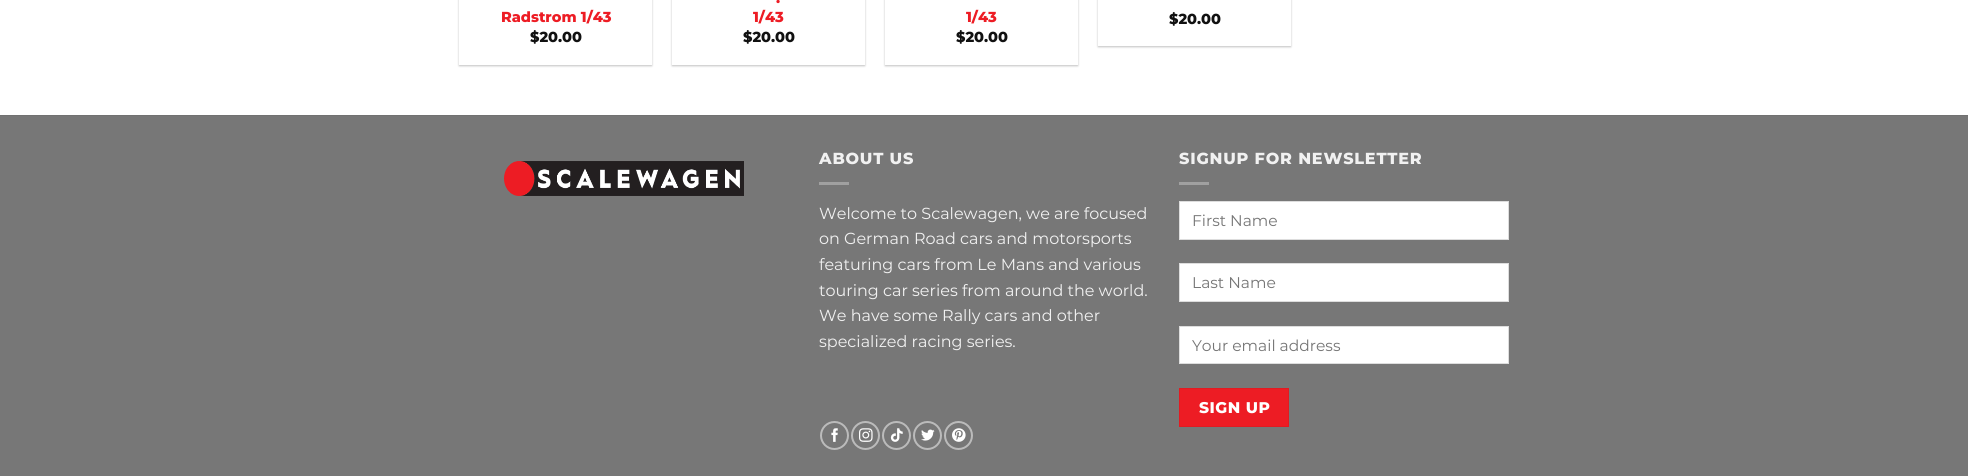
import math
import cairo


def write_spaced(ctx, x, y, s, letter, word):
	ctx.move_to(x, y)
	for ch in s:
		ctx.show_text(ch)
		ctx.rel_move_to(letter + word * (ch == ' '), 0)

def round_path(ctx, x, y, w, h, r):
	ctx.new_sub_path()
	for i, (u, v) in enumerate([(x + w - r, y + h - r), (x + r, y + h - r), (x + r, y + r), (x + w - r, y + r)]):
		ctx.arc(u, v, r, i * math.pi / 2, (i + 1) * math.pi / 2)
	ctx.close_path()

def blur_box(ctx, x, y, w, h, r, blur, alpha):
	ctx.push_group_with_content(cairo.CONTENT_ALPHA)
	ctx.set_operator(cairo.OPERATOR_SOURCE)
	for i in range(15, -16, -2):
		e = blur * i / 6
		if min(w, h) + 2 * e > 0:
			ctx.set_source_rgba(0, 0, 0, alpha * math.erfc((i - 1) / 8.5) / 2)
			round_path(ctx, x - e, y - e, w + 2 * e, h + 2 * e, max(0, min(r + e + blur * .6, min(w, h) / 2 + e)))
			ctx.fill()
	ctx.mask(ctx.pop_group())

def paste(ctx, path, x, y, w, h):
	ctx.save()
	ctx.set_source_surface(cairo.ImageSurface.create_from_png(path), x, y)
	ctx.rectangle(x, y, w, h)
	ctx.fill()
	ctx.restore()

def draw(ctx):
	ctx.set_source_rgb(1, 1, 1)
	ctx.paint()
	ctx.save()
	ctx.set_fill_rule(cairo.FILL_RULE_EVEN_ODD)
	ctx.new_path()
	ctx.move_to(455, 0)
	ctx.line_to(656, 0)
	ctx.line_to(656, 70)
	ctx.line_to(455, 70)
	ctx.close_path()
	ctx.move_to(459, -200)
	ctx.line_to(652, -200)
	ctx.line_to(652, 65)
	ctx.line_to(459, 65)
	ctx.close_path()
	ctx.clip()
	ctx.set_source_rgb(0, 0, 0)
	blur_box(ctx, 459, -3, 193, 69, 0, 1, 0.24)
	ctx.restore()
	ctx.select_font_face('Montserrat ExtraBold')
	ctx.set_font_size(14.5)
	ctx.set_source_rgb(0.929, 0.11, 0.141)
	ctx.move_to(501, 22)
	ctx.show_text('Radstrom 1/43')
	ctx.set_source_rgb(0.067, 0.067, 0.067)
	ctx.move_to(530, 42)
	ctx.show_text('$20.00')
	ctx.save()
	ctx.set_fill_rule(cairo.FILL_RULE_EVEN_ODD)
	ctx.new_path()
	ctx.move_to(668, 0)
	ctx.line_to(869, 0)
	ctx.line_to(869, 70)
	ctx.line_to(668, 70)
	ctx.close_path()
	ctx.move_to(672, -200)
	ctx.line_to(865, -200)
	ctx.line_to(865, 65)
	ctx.line_to(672, 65)
	ctx.close_path()
	ctx.clip()
	ctx.set_source_rgb(0, 0, 0)
	blur_box(ctx, 672, -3, 193, 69, 0, 1, 0.24)
	ctx.restore()
	ctx.set_source_rgb(0.929, 0.11, 0.141)
	ctx.move_to(776, 3)
	ctx.show_text('.')
	ctx.move_to(753, 22)
	ctx.show_text('1/43')
	ctx.set_source_rgb(0.067, 0.067, 0.067)
	ctx.move_to(743, 42)
	ctx.show_text('$20.00')
	ctx.save()
	ctx.set_fill_rule(cairo.FILL_RULE_EVEN_ODD)
	ctx.new_path()
	ctx.move_to(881, 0)
	ctx.line_to(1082, 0)
	ctx.line_to(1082, 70)
	ctx.line_to(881, 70)
	ctx.close_path()
	ctx.move_to(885, -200)
	ctx.line_to(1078, -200)
	ctx.line_to(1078, 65)
	ctx.line_to(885, 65)
	ctx.close_path()
	ctx.clip()
	ctx.set_source_rgb(0, 0, 0)
	blur_box(ctx, 885, -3, 193, 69, 0, 1, 0.24)
	ctx.restore()
	ctx.set_source_rgb(0.929, 0.11, 0.141)
	ctx.move_to(966, 22)
	ctx.show_text('1/43')
	ctx.set_source_rgb(0.067, 0.067, 0.067)
	ctx.move_to(956, 42)
	ctx.show_text('$20.00')
	ctx.save()
	ctx.set_fill_rule(cairo.FILL_RULE_EVEN_ODD)
	ctx.new_path()
	ctx.move_to(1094, 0)
	ctx.line_to(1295, 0)
	ctx.line_to(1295, 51)
	ctx.line_to(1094, 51)
	ctx.close_path()
	ctx.move_to(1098, -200)
	ctx.line_to(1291, -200)
	ctx.line_to(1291, 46)
	ctx.line_to(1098, 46)
	ctx.close_path()
	ctx.clip()
	ctx.set_source_rgb(0, 0, 0)
	blur_box(ctx, 1098, -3, 193, 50, 0, 1, 0.24)
	ctx.restore()
	ctx.move_to(1169, 24)
	ctx.show_text('$20.00')
	ctx.set_source_rgb(0.467, 0.467, 0.467)
	ctx.rectangle(0, 116, 1968, 360)
	ctx.fill()
	ctx.set_source_rgb(0.443, 0.443, 0.443)
	ctx.rectangle(0, 115, 1968, 1)
	ctx.fill()
	paste(ctx, 'media/1.png', 504, 161, 240, 35)
	ctx.set_font_size(16)
	ctx.set_source_rgb(0.945, 0.945, 0.945)
	write_spaced(ctx, 819, 164, 'ABOUT US', 0.8, 0)
	ctx.set_source_rgb(0.627, 0.627, 0.627)
	ctx.rectangle(819, 182, 30, 3)
	ctx.fill()
	ctx.select_font_face('Montserrat')
	ctx.set_source_rgb(0.945, 0.945, 0.945)
	for x, y, s in [
		(819, 219, 'Welcome to Scalewagen, we are focused'),
		(819, 244, 'on German Road cars and motorsports'),
		(819, 270, 'featuring cars from Le Mans and various'),
		(819, 296, 'touring car series from around the world.'),
		(819, 321, 'We have some Rally cars and other'),
		(819, 347, 'specialized racing series.'),
	]:
		ctx.move_to(x, y)
		ctx.show_text(s)
	ctx.new_path()
	ctx.arc(834.5, 435.5, 13.5, 0, 2 * math.pi)
	ctx.set_source_rgb(0.733, 0.733, 0.733)
	ctx.stroke()
	paste(ctx, 'media/2.png', 831, 428, 7, 14)
	ctx.arc(865.5, 435.5, 13.5, 0, 2 * math.pi)
	ctx.stroke()
	paste(ctx, 'media/3.png', 859, 428, 14, 14)
	ctx.arc(896.5, 435.5, 13.5, 0, 2 * math.pi)
	ctx.stroke()
	paste(ctx, 'media/4.png', 890, 428, 13, 14)
	ctx.arc(927.5, 435.5, 13.5, 0, 2 * math.pi)
	ctx.stroke()
	paste(ctx, 'media/5.png', 921, 429, 14, 12)
	ctx.arc(958.5, 435.5, 13.5, 0, 2 * math.pi)
	ctx.stroke()
	paste(ctx, 'media/6.png', 952, 428, 14, 14)
	ctx.select_font_face('Montserrat ExtraBold')
	ctx.set_source_rgb(0.945, 0.945, 0.945)
	write_spaced(ctx, 1179, 164, 'SIGNUP FOR NEWSLETTER', 0.8, 0)
	ctx.set_source_rgb(0.627, 0.627, 0.627)
	ctx.rectangle(1179, 182, 30, 3)
	ctx.fill()
	ctx.set_source_rgb(1, 1, 1)
	ctx.rectangle(1179.5, 201.5, 329, 38)
	ctx.fill_preserve()
	ctx.set_source_rgb(0.867, 0.867, 0.867)
	ctx.set_line_width(1)
	ctx.stroke()
	ctx.select_font_face('Montserrat')
	ctx.set_font_size(15.5)
	ctx.set_source_rgb(0.459, 0.459, 0.459)
	ctx.move_to(1192, 226)
	ctx.show_text('First Name')
	ctx.set_source_rgb(1, 1, 1)
	ctx.rectangle(1179.5, 263.5, 329, 38)
	ctx.fill_preserve()
	ctx.set_source_rgb(0.867, 0.867, 0.867)
	ctx.stroke()
	ctx.set_source_rgb(0.459, 0.459, 0.459)
	ctx.move_to(1192, 288)
	ctx.show_text('Last Name')
	ctx.set_source_rgb(1, 1, 1)
	ctx.rectangle(1179.5, 326.5, 329, 37)
	ctx.fill_preserve()
	ctx.set_source_rgb(0.867, 0.867, 0.867)
	ctx.stroke()
	ctx.set_source_rgb(0.459, 0.459, 0.459)
	ctx.move_to(1192, 351)
	ctx.show_text('Your email address')
	ctx.set_source_rgb(0.929, 0.11, 0.141)
	ctx.rectangle(1179.5, 388.5, 109, 38)
	ctx.fill_preserve()
	ctx.set_source_rgb(0.882, 0.106, 0.133)
	ctx.stroke()
	ctx.select_font_face('Montserrat ExtraBold')
	ctx.set_source_rgb(1, 1, 1)
	write_spaced(ctx, 1199, 413, 'SIGN UP', 0.5, 0)


surface = cairo.ImageSurface(cairo.FORMAT_RGB24, 1968, 476)
ctx = cairo.Context(surface)
options = cairo.FontOptions()
options.set_hint_metrics(cairo.HINT_METRICS_OFF)
options.set_hint_style(cairo.HINT_STYLE_NONE)
ctx.set_font_options(options)
ctx.set_miter_limit(4)
draw(ctx)
surface.write_to_png('image.png')
